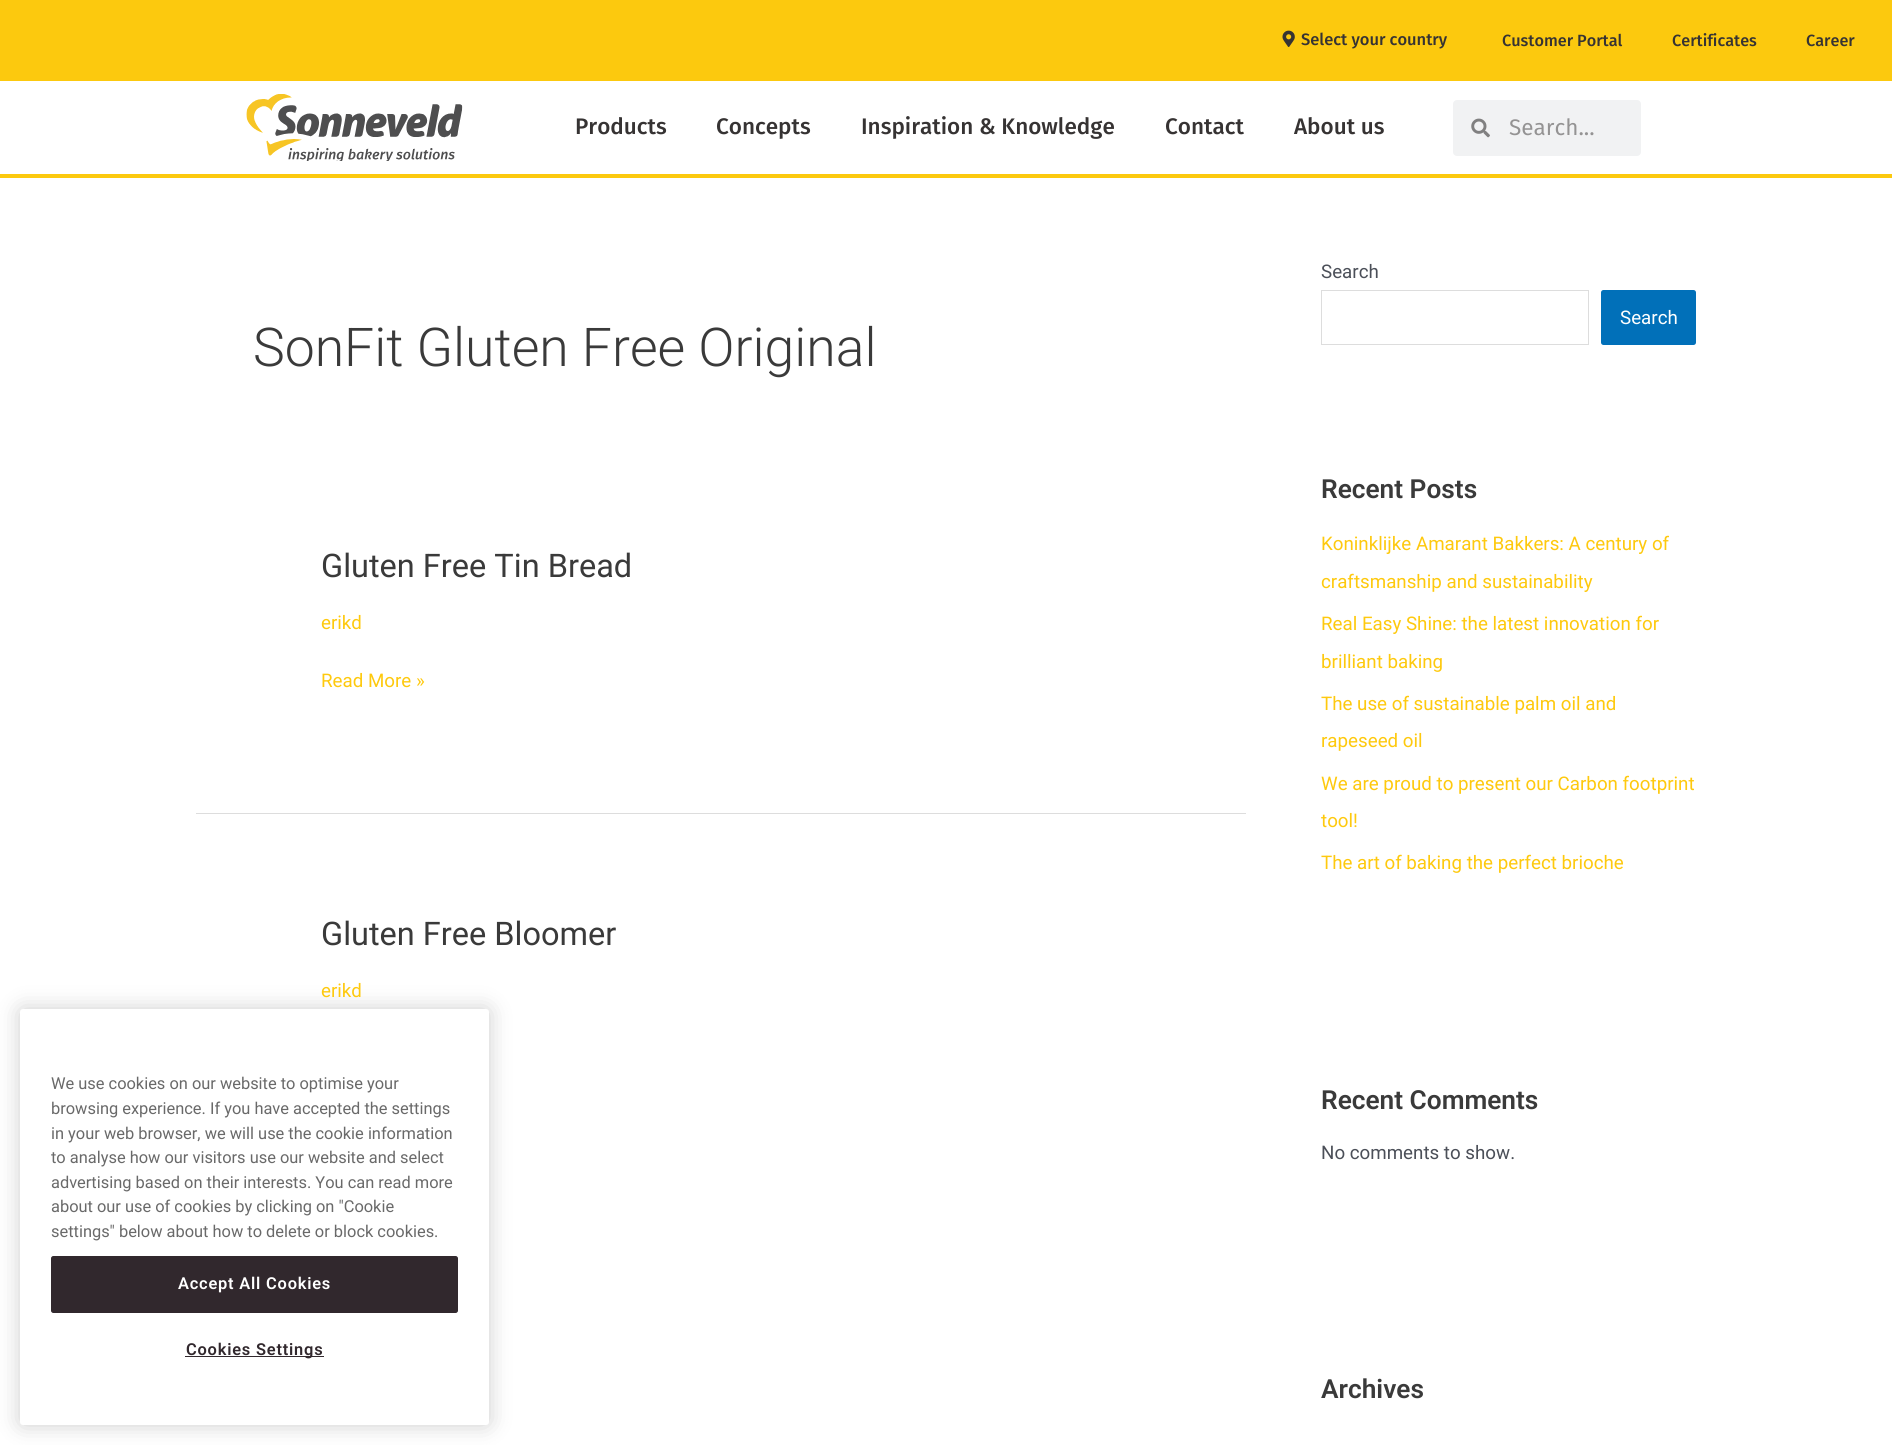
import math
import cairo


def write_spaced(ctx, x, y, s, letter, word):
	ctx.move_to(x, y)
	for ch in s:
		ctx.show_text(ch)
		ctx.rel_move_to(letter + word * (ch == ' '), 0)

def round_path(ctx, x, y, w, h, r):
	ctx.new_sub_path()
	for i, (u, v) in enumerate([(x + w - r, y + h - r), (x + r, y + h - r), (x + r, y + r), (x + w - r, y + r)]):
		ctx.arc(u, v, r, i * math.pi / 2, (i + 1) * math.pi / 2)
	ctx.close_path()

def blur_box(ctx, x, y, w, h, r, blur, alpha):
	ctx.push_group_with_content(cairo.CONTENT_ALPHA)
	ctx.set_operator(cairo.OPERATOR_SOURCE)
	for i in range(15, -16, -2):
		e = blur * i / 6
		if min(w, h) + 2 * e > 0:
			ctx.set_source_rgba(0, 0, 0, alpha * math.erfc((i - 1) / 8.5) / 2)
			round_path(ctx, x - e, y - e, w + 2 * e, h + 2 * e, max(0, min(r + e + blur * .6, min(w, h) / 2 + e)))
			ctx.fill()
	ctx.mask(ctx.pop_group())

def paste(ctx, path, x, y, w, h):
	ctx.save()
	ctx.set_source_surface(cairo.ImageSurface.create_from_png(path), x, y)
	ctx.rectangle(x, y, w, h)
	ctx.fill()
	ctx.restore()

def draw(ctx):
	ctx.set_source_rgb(1, 1, 1)
	ctx.paint()
	ctx.set_source_rgb(0, 0, 0)
	blur_box(ctx, 20, 1009, 469, 416, 3, 11, 0.2)
	ctx.set_source_rgb(1, 1, 1)
	round_path(ctx, 20, 1009, 469, 416, 3)
	ctx.fill()
	ctx.select_font_face('Roboto')
	ctx.set_font_size(16.4)
	ctx.set_source_rgb(0.412, 0.412, 0.412)
	for x, y, s in [
		(51, 1089, 'We use cookies on our website to optimise your'),
		(51, 1114, 'browsing experience. If you have accepted the settings'),
		(51, 1139, 'in your web browser, we will use the cookie information'),
		(51, 1163, 'to analyse how our visitors use our website and select'),
		(51, 1188, 'advertising based on their interests. You can read more'),
		(51, 1212, 'about our use of cookies by clicking on "Cookie'),
		(51, 1237, 'settings" below about how to delete or block cookies.'),
	]:
		ctx.move_to(x, y)
		ctx.show_text(s)
	ctx.set_source_rgb(0.192, 0.157, 0.176)
	round_path(ctx, 51.5, 1256.5, 406, 56, 2)
	ctx.fill_preserve()
	ctx.set_line_width(1)
	ctx.stroke()
	ctx.select_font_face('Roboto SemiBold')
	ctx.set_source_rgb(1, 1, 1)
	write_spaced(ctx, 178, 1289, 'Accept All Cookies', 0.8, 0)
	ctx.set_source_rgb(0.192, 0.157, 0.176)
	ctx.rectangle(185, 1356, 139, 1)
	ctx.fill()
	write_spaced(ctx, 186, 1355, 'Cookies Settings', 0.8, 0)
	ctx.set_source_rgb(0.988, 0.788, 0.055)
	ctx.rectangle(0, 0, 1892, 81)
	ctx.fill()
	paste(ctx, 'media/1.png', 1282, 30, 13, 17)
	ctx.select_font_face('Fira Sans Medium')
	ctx.set_font_size(16.5)
	ctx.set_source_rgb(0.212, 0.2, 0.2)
	ctx.move_to(1301, 45)
	ctx.show_text('Select your country')
	ctx.set_font_size(16.25)
	for x, y, s in [
		(1502, 46, 'Customer Portal'),
		(1672, 46, 'Certificates'),
		(1806, 46, 'Career'),
	]:
		ctx.move_to(x, y)
		ctx.show_text(s)
	ctx.set_source_rgb(0.988, 0.788, 0.055)
	ctx.rectangle(0, 174, 1892, 4)
	ctx.fill()
	paste(ctx, 'media/2.png', 246, 94, 217, 67)
	ctx.set_font_size(22.5)
	ctx.set_source_rgb(0.212, 0.2, 0.2)
	for x, y, s in [
		(575, 134, 'Products'),
		(716, 134, 'Concepts'),
		(861, 134, 'Inspiration & Knowledge'),
		(1165, 134, 'Contact'),
		(1294, 134, 'About us'),
	]:
		ctx.move_to(x, y)
		ctx.show_text(s)
	ctx.set_source_rgb(0.945, 0.949, 0.953)
	round_path(ctx, 1453, 100, 188, 56, 4)
	ctx.fill()
	paste(ctx, 'media/3.png', 1471, 118, 19, 20)
	ctx.select_font_face('Fira Sans')
	ctx.set_source_rgb(0.58, 0.576, 0.576)
	ctx.move_to(1509, 135)
	ctx.show_text('Search...')
	ctx.select_font_face('Roboto Light')
	ctx.set_font_size(53.5)
	ctx.set_source_rgb(0.227, 0.227, 0.227)
	ctx.move_to(253, 366)
	ctx.show_text('SonFit Gluten Free Original')
	ctx.set_source_rgb(0.867, 0.867, 0.867)
	ctx.rectangle(196, 813, 1050, 1)
	ctx.fill()
	ctx.select_font_face('Roboto')
	ctx.set_font_size(32.5)
	ctx.set_source_rgb(0.227, 0.227, 0.227)
	ctx.move_to(321, 577)
	ctx.show_text('Gluten Free Tin Bread')
	ctx.set_font_size(18.75)
	ctx.set_source_rgb(0.996, 0.788, 0.055)
	ctx.move_to(321, 629)
	ctx.show_text('erikd')
	ctx.move_to(321, 687)
	ctx.show_text('Read More »')
	ctx.set_font_size(32.5)
	ctx.set_source_rgb(0.227, 0.227, 0.227)
	ctx.move_to(321, 945)
	ctx.show_text('Gluten Free Bloomer')
	ctx.set_font_size(18.75)
	ctx.set_source_rgb(0.996, 0.788, 0.055)
	ctx.move_to(321, 997)
	ctx.show_text('erikd')
	ctx.set_source_rgb(0.294, 0.31, 0.345)
	ctx.move_to(1321, 278)
	ctx.show_text('Search')
	ctx.rectangle(1321.5, 290.5, 267, 54)
	ctx.set_source_rgb(0.867, 0.867, 0.867)
	ctx.stroke()
	ctx.set_source_rgb(0.004, 0.439, 0.725)
	round_path(ctx, 1601, 290, 95, 55, 2.5)
	ctx.fill()
	ctx.set_source_rgb(1, 1, 1)
	ctx.move_to(1620, 324)
	ctx.show_text('Search')
	ctx.select_font_face('Roboto SemiBold')
	ctx.set_font_size(26.25)
	ctx.set_source_rgb(0.227, 0.227, 0.227)
	ctx.move_to(1321, 498)
	ctx.show_text('Recent Posts')
	ctx.select_font_face('Roboto')
	ctx.set_font_size(18.75)
	ctx.set_source_rgb(0.996, 0.788, 0.055)
	for x, y, s in [
		(1321, 550, 'Koninklijke Amarant Bakkers: A century of'),
		(1321, 588, 'craftsmanship and sustainability'),
		(1321, 630, 'Real Easy Shine: the latest innovation for'),
		(1321, 668, 'brilliant baking'),
		(1321, 710, 'The use of sustainable palm oil and'),
		(1321, 747, 'rapeseed oil'),
		(1321, 790, 'We are proud to present our Carbon footprint'),
		(1321, 827, 'tool!'),
		(1321, 869, 'The art of baking the perfect brioche'),
	]:
		ctx.move_to(x, y)
		ctx.show_text(s)
	ctx.select_font_face('Roboto SemiBold')
	ctx.set_font_size(26.25)
	ctx.set_source_rgb(0.227, 0.227, 0.227)
	ctx.move_to(1321, 1109)
	ctx.show_text('Recent Comments')
	ctx.select_font_face('Roboto')
	ctx.set_font_size(18.75)
	ctx.set_source_rgb(0.294, 0.31, 0.345)
	ctx.move_to(1321, 1159)
	ctx.show_text('No comments to show.')
	ctx.select_font_face('Roboto SemiBold')
	ctx.set_font_size(26.25)
	ctx.set_source_rgb(0.227, 0.227, 0.227)
	ctx.move_to(1321, 1398)
	ctx.show_text('Archives')


surface = cairo.ImageSurface(cairo.FORMAT_RGB24, 1892, 1445)
ctx = cairo.Context(surface)
options = cairo.FontOptions()
options.set_hint_metrics(cairo.HINT_METRICS_OFF)
options.set_hint_style(cairo.HINT_STYLE_NONE)
ctx.set_font_options(options)
ctx.set_miter_limit(4)
draw(ctx)
surface.write_to_png('image.png')
